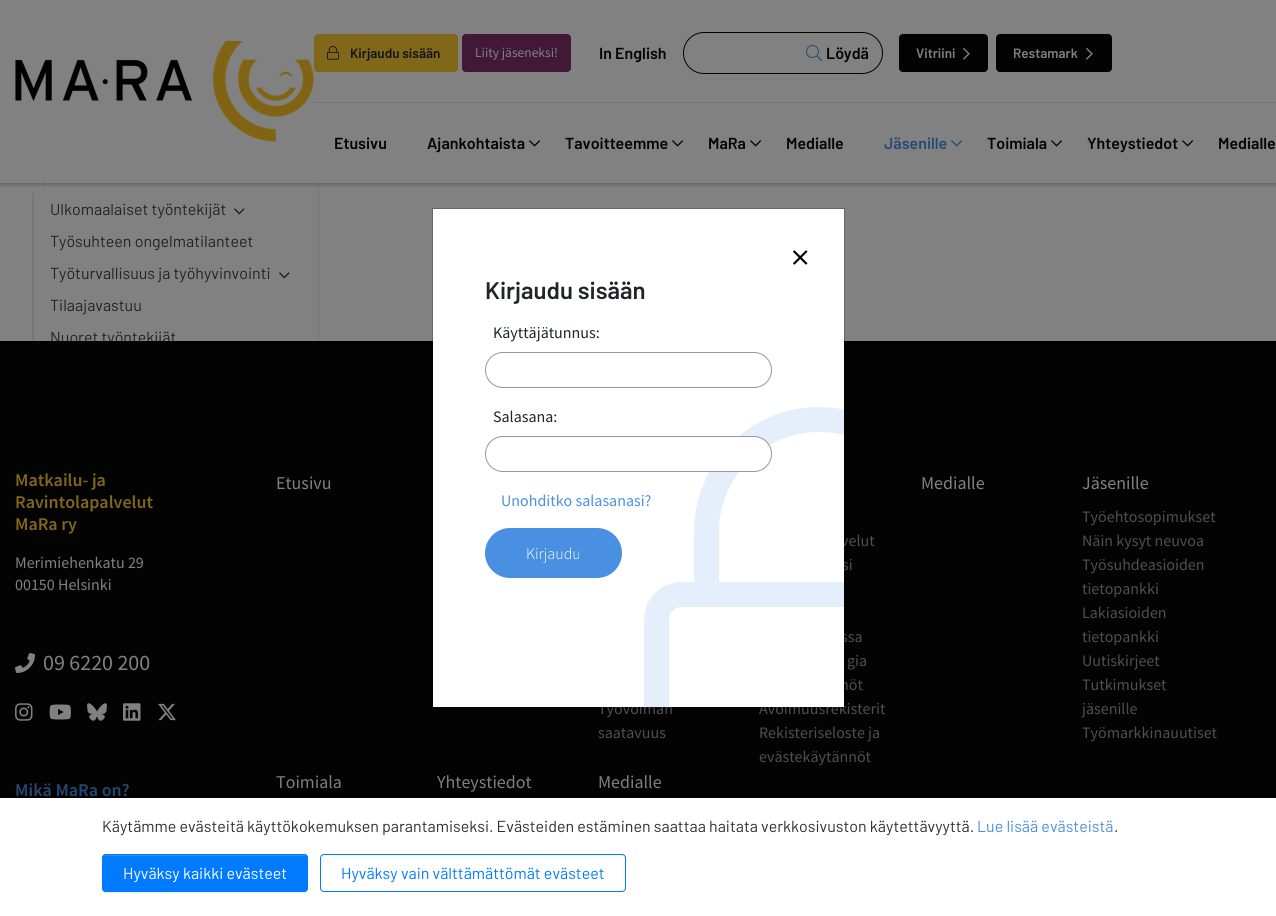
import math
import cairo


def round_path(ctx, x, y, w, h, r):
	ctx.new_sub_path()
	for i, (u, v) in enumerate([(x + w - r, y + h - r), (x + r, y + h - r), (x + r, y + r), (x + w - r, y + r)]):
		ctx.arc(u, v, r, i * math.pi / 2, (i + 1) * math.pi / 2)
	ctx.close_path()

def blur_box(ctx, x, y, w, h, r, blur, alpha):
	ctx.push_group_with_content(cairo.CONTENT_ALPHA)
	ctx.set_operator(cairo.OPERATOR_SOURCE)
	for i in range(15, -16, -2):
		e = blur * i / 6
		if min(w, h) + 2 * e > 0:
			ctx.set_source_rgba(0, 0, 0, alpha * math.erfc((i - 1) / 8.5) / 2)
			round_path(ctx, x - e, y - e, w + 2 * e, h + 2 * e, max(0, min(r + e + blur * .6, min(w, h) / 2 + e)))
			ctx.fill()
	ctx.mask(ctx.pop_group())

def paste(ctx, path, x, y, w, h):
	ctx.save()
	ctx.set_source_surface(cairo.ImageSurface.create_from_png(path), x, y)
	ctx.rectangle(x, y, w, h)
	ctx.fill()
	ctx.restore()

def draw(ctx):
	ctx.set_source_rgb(0.506, 0.506, 0.506)
	ctx.paint()
	ctx.set_source_rgb(0.463, 0.463, 0.463)
	ctx.rectangle(318, 183, 1, 158)
	ctx.fill()
	ctx.rectangle(44, 183, 2, 2)
	ctx.fill()
	ctx.set_source_rgb(0.008, 0.008, 0.008)
	blur_box(ctx, 0, 2, 1276, 183, 0, 2, 0.22)
	ctx.set_source_rgb(0.506, 0.506, 0.506)
	ctx.rectangle(0, 0, 1276, 183)
	ctx.fill()
	paste(ctx, 'media/1.png', 15, 41, 299, 101)
	ctx.set_source_rgb(0.443, 0.451, 0.459)
	ctx.rectangle(314, 102, 962, 1)
	ctx.fill()
	ctx.set_source_rgb(0.506, 0.404, 0.102)
	round_path(ctx, 314, 34, 144, 38, 4)
	ctx.fill()
	paste(ctx, 'media/2.png', 327, 46, 12, 14)
	ctx.select_font_face('Barlow SemiBold')
	ctx.set_font_size(13.5)
	ctx.set_source_rgb(0.071, 0.078, 0.086)
	ctx.move_to(350, 58)
	ctx.show_text('Kirjaudu sisään')
	ctx.set_source_rgb(0.255, 0.094, 0.212)
	round_path(ctx, 462, 34, 109, 38, 4)
	ctx.fill()
	ctx.select_font_face('Source Sans Pro')
	ctx.set_source_rgb(0.506, 0.506, 0.506)
	ctx.move_to(475, 57)
	ctx.show_text('Liity jäseneksi!')
	ctx.select_font_face('Barlow SemiBold')
	ctx.set_font_size(16)
	ctx.set_source_rgb(0.012, 0.012, 0.012)
	ctx.move_to(599, 59)
	ctx.show_text('In English')
	round_path(ctx, 683.5, 32.5, 199, 41, 20.5)
	ctx.set_line_width(1)
	ctx.stroke()
	paste(ctx, 'media/3.png', 806, 45, 16, 16)
	ctx.move_to(826, 59)
	ctx.show_text('Löydä')
	round_path(ctx, 899.5, 34.5, 88, 37, 3.5)
	ctx.fill_preserve()
	ctx.stroke()
	ctx.set_font_size(13.5)
	ctx.set_source_rgb(0.506, 0.506, 0.506)
	ctx.move_to(916, 58)
	ctx.show_text('Vitriini')
	paste(ctx, 'media/4.png', 963, 48, 7, 12)
	ctx.set_source_rgb(0.012, 0.012, 0.012)
	round_path(ctx, 996.5, 34.5, 115, 37, 3.5)
	ctx.fill_preserve()
	ctx.stroke()
	ctx.set_source_rgb(0.506, 0.506, 0.506)
	ctx.move_to(1013, 58)
	ctx.show_text('Restamark')
	paste(ctx, 'media/4.png', 1086, 48, 7, 12)
	ctx.set_font_size(16)
	ctx.set_source_rgb(0.012, 0.012, 0.012)
	ctx.move_to(334, 149)
	ctx.show_text('Etusivu')
	ctx.move_to(427, 149)
	ctx.show_text('Ajankohtaista')
	paste(ctx, 'media/5.png', 529, 140, 11, 7)
	ctx.move_to(565, 149)
	ctx.show_text('Tavoitteemme')
	paste(ctx, 'media/5.png', 672, 140, 11, 7)
	ctx.move_to(708, 149)
	ctx.show_text('MaRa')
	paste(ctx, 'media/5.png', 750, 140, 11, 7)
	ctx.move_to(786, 149)
	ctx.show_text('Medialle')
	ctx.set_source_rgb(0.153, 0.29, 0.451)
	ctx.move_to(884, 149)
	ctx.show_text('Jäsenille')
	paste(ctx, 'media/6.png', 951, 140, 11, 7)
	ctx.set_source_rgb(0.012, 0.012, 0.012)
	ctx.move_to(987, 149)
	ctx.show_text('Toimiala')
	paste(ctx, 'media/5.png', 1051, 140, 11, 7)
	ctx.move_to(1087, 149)
	ctx.show_text('Yhteystiedot')
	paste(ctx, 'media/5.png', 1182, 140, 11, 7)
	ctx.move_to(1218, 149)
	ctx.show_text('Medialle')
	ctx.set_source_rgb(0.463, 0.463, 0.463)
	ctx.rectangle(32, 193, 2, 148)
	ctx.fill()
	ctx.select_font_face('Barlow')
	ctx.set_source_rgb(0.137, 0.137, 0.137)
	ctx.move_to(50, 215)
	ctx.show_text('Ulkomaalaiset työntekijät')
	paste(ctx, 'media/7.png', 234, 208, 11, 7)
	ctx.move_to(50, 247)
	ctx.show_text('Työsuhteen ongelmatilanteet')
	ctx.move_to(50, 279)
	ctx.show_text('Työturvallisuus ja työhyvinvointi')
	paste(ctx, 'media/7.png', 279, 272, 11, 7)
	ctx.move_to(50, 311)
	ctx.show_text('Tilaajavastuu')
	ctx.save()
	ctx.rectangle(0, 0, 318, 341)
	ctx.clip()
	ctx.move_to(50, 343)
	ctx.show_text('Nuoret työntekijät')
	ctx.restore()
	ctx.set_source_rgb(0.012, 0.012, 0.012)
	ctx.rectangle(0, 341, 1276, 457)
	ctx.fill()
	ctx.select_font_face('Source Sans Pro')
	ctx.set_source_rgb(0.31, 0.31, 0.31)
	for x, y, s in [
		(598, 714, 'Työvoiman'),
		(841, 546, 'velut'),
		(842, 570, 'si'),
		(841, 642, 'ssa'),
		(840, 690, 'nöt'),
		(759, 714, 'Avoimuusrekisterit'),
	]:
		ctx.move_to(x, y)
		ctx.show_text(s)
	ctx.set_source_rgb(1, 1, 1)
	ctx.rectangle(433, 209, 411, 498)
	ctx.fill()
	ctx.rectangle(432.5, 208.5, 412, 499)
	ctx.set_source_rgba(0.012, 0.012, 0.012, 0.2)
	ctx.stroke()
	paste(ctx, 'media/8.png', 793, 250, 15, 15)
	ctx.select_font_face('Barlow SemiBold')
	ctx.set_font_size(24)
	ctx.set_source_rgb(0.129, 0.145, 0.161)
	ctx.move_to(485, 299)
	ctx.show_text('Kirjaudu sisään')
	ctx.select_font_face('Source Sans Pro')
	ctx.set_font_size(16)
	ctx.move_to(493, 338)
	ctx.show_text('Käyttäjätunnus:')
	round_path(ctx, 485.5, 352.5, 286, 35, 17.5)
	ctx.set_source_rgb(0.592, 0.592, 0.592)
	ctx.stroke()
	ctx.set_source_rgb(0.129, 0.145, 0.161)
	ctx.move_to(493, 422)
	ctx.show_text('Salasana:')
	paste(ctx, 'media/9.png', 644, 407, 200, 300)
	ctx.set_source_rgb(1, 1, 1)
	round_path(ctx, 485.5, 436.5, 286, 35, 17.5)
	ctx.fill_preserve()
	ctx.set_source_rgb(0.592, 0.592, 0.592)
	ctx.stroke()
	ctx.set_source_rgb(0.29, 0.565, 0.886)
	ctx.move_to(501, 506)
	ctx.show_text('Unohditko salasanasi?')
	round_path(ctx, 485, 528, 137, 50, 25)
	ctx.fill()
	ctx.select_font_face('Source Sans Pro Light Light')
	ctx.set_source_rgb(1, 1, 1)
	ctx.move_to(526, 559)
	ctx.show_text('Kirjaudu')
	ctx.select_font_face('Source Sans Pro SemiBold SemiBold')
	ctx.set_font_size(18)
	ctx.set_source_rgb(0.506, 0.404, 0.102)
	for x, y, s in [
		(15, 486, 'Matkailu- ja'),
		(15, 508, 'Ravintolapalvelut'),
		(15, 530, 'MaRa ry'),
	]:
		ctx.move_to(x, y)
		ctx.show_text(s)
	ctx.select_font_face('Source Sans Pro')
	ctx.set_font_size(16)
	ctx.set_source_rgb(0.506, 0.506, 0.506)
	ctx.move_to(15, 568)
	ctx.show_text('Merimiehenkatu 29')
	ctx.move_to(15, 590)
	ctx.show_text('00150 Helsinki')
	paste(ctx, 'media/10.png', 15, 653, 20, 20)
	ctx.set_font_size(22)
	ctx.move_to(43, 670)
	ctx.show_text('09 6220 200')
	paste(ctx, 'media/11.png', 15, 703, 18, 18)
	paste(ctx, 'media/12.png', 49, 704, 22, 16)
	paste(ctx, 'media/13.png', 87, 703, 20, 18)
	paste(ctx, 'media/14.png', 123, 703, 18, 18)
	paste(ctx, 'media/15.png', 158, 703, 18, 18)
	ctx.select_font_face('Source Sans Pro SemiBold SemiBold')
	ctx.set_font_size(18)
	ctx.set_source_rgb(0.153, 0.29, 0.451)
	ctx.move_to(15, 796)
	ctx.show_text('Mikä MaRa on?')
	ctx.select_font_face('Source Sans Pro')
	ctx.set_source_rgb(0.506, 0.506, 0.506)
	ctx.move_to(276, 489)
	ctx.show_text('Etusivu')
	ctx.set_font_size(16)
	ctx.set_source_rgb(0.31, 0.31, 0.31)
	for x, y, s in [
		(598, 738, 'saatavuus'),
		(847, 666, 'gia'),
		(759, 738, 'Rekisteriseloste ja'),
		(759, 762, 'evästekäytännöt'),
	]:
		ctx.move_to(x, y)
		ctx.show_text(s)
	ctx.set_font_size(18)
	ctx.set_source_rgb(0.506, 0.506, 0.506)
	ctx.move_to(921, 489)
	ctx.show_text('Medialle')
	ctx.move_to(1082, 489)
	ctx.show_text('Jäsenille')
	ctx.set_font_size(16)
	ctx.set_source_rgb(0.31, 0.31, 0.31)
	for x, y, s in [
		(1082, 522, 'Työehtosopimukset'),
		(1082, 546, 'Näin kysyt neuvoa'),
		(1082, 570, 'Työsuhdeasioiden'),
		(1082, 594, 'tietopankki'),
		(1082, 618, 'Lakiasioiden'),
		(1082, 642, 'tietopankki'),
		(1082, 666, 'Uutiskirjeet'),
		(1082, 690, 'Tutkimukset'),
		(1082, 714, 'jäsenille'),
		(1082, 738, 'Työmarkkinauutiset'),
	]:
		ctx.move_to(x, y)
		ctx.show_text(s)
	ctx.set_font_size(18)
	ctx.set_source_rgb(0.506, 0.506, 0.506)
	for x, y, s in [
		(276, 788, 'Toimiala'),
		(437, 788, 'Yhteystiedot'),
		(598, 788, 'Medialle'),
	]:
		ctx.move_to(x, y)
		ctx.show_text(s)
	ctx.set_source_rgb(0, 0, 0)
	blur_box(ctx, 0, 814, 1276, 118, 0, 24, 0.18)
	ctx.set_source_rgb(1, 1, 1)
	ctx.rectangle(0, 798, 1276, 118)
	ctx.fill()
	ctx.select_font_face('Barlow')
	ctx.set_font_size(16)
	ctx.set_source_rgb(0.188, 0.188, 0.188)
	ctx.move_to(102, 832)
	ctx.show_text('Käytämme evästeitä käyttökokemuksen parantamiseksi. Evästeiden estäminen saattaa haitata verkkosivuston käytettävyyttä.')
	ctx.set_source_rgb(0.29, 0.565, 0.886)
	ctx.move_to(977, 832)
	ctx.show_text('Lue lisää evästeistä')
	ctx.set_source_rgb(0.188, 0.188, 0.188)
	ctx.move_to(1114, 832)
	ctx.show_text('.')
	ctx.set_source_rgb(0, 0, 0)
	blur_box(ctx, 102, 855, 206, 38, 4, 0.5, 0.07)
	ctx.set_source_rgb(0, 0.482, 1)
	round_path(ctx, 102, 854, 206, 38, 4)
	ctx.fill()
	ctx.set_source_rgb(0.149, 0.561, 1)
	ctx.new_path()
	ctx.move_to(106, 856)
	ctx.line_to(304, 856)
	ctx.curve_to(306, 856, 307, 857, 307, 859)
	ctx.curve_to(307, 857, 306, 855, 304, 855)
	ctx.line_to(106, 855)
	ctx.curve_to(104, 855, 103, 857, 103, 859)
	ctx.curve_to(103, 857, 104, 856, 106, 856)
	ctx.close_path()
	ctx.fill()
	round_path(ctx, 102.5, 854.5, 205, 37, 3.5)
	ctx.set_source_rgb(0, 0.482, 1)
	ctx.stroke()
	ctx.set_source_rgb(1, 1, 1)
	ctx.move_to(123, 879)
	ctx.show_text('Hyväksy kaikki evästeet')
	round_path(ctx, 320.5, 854.5, 305, 37, 3.5)
	ctx.set_source_rgb(0, 0.482, 1)
	ctx.stroke()
	ctx.move_to(341, 879)
	ctx.show_text('Hyväksy vain välttämättömät evästeet')


surface = cairo.ImageSurface(cairo.FORMAT_RGB24, 1276, 916)
ctx = cairo.Context(surface)
options = cairo.FontOptions()
options.set_hint_metrics(cairo.HINT_METRICS_OFF)
options.set_hint_style(cairo.HINT_STYLE_NONE)
ctx.set_font_options(options)
ctx.set_miter_limit(4)
draw(ctx)
surface.write_to_png('image.png')
